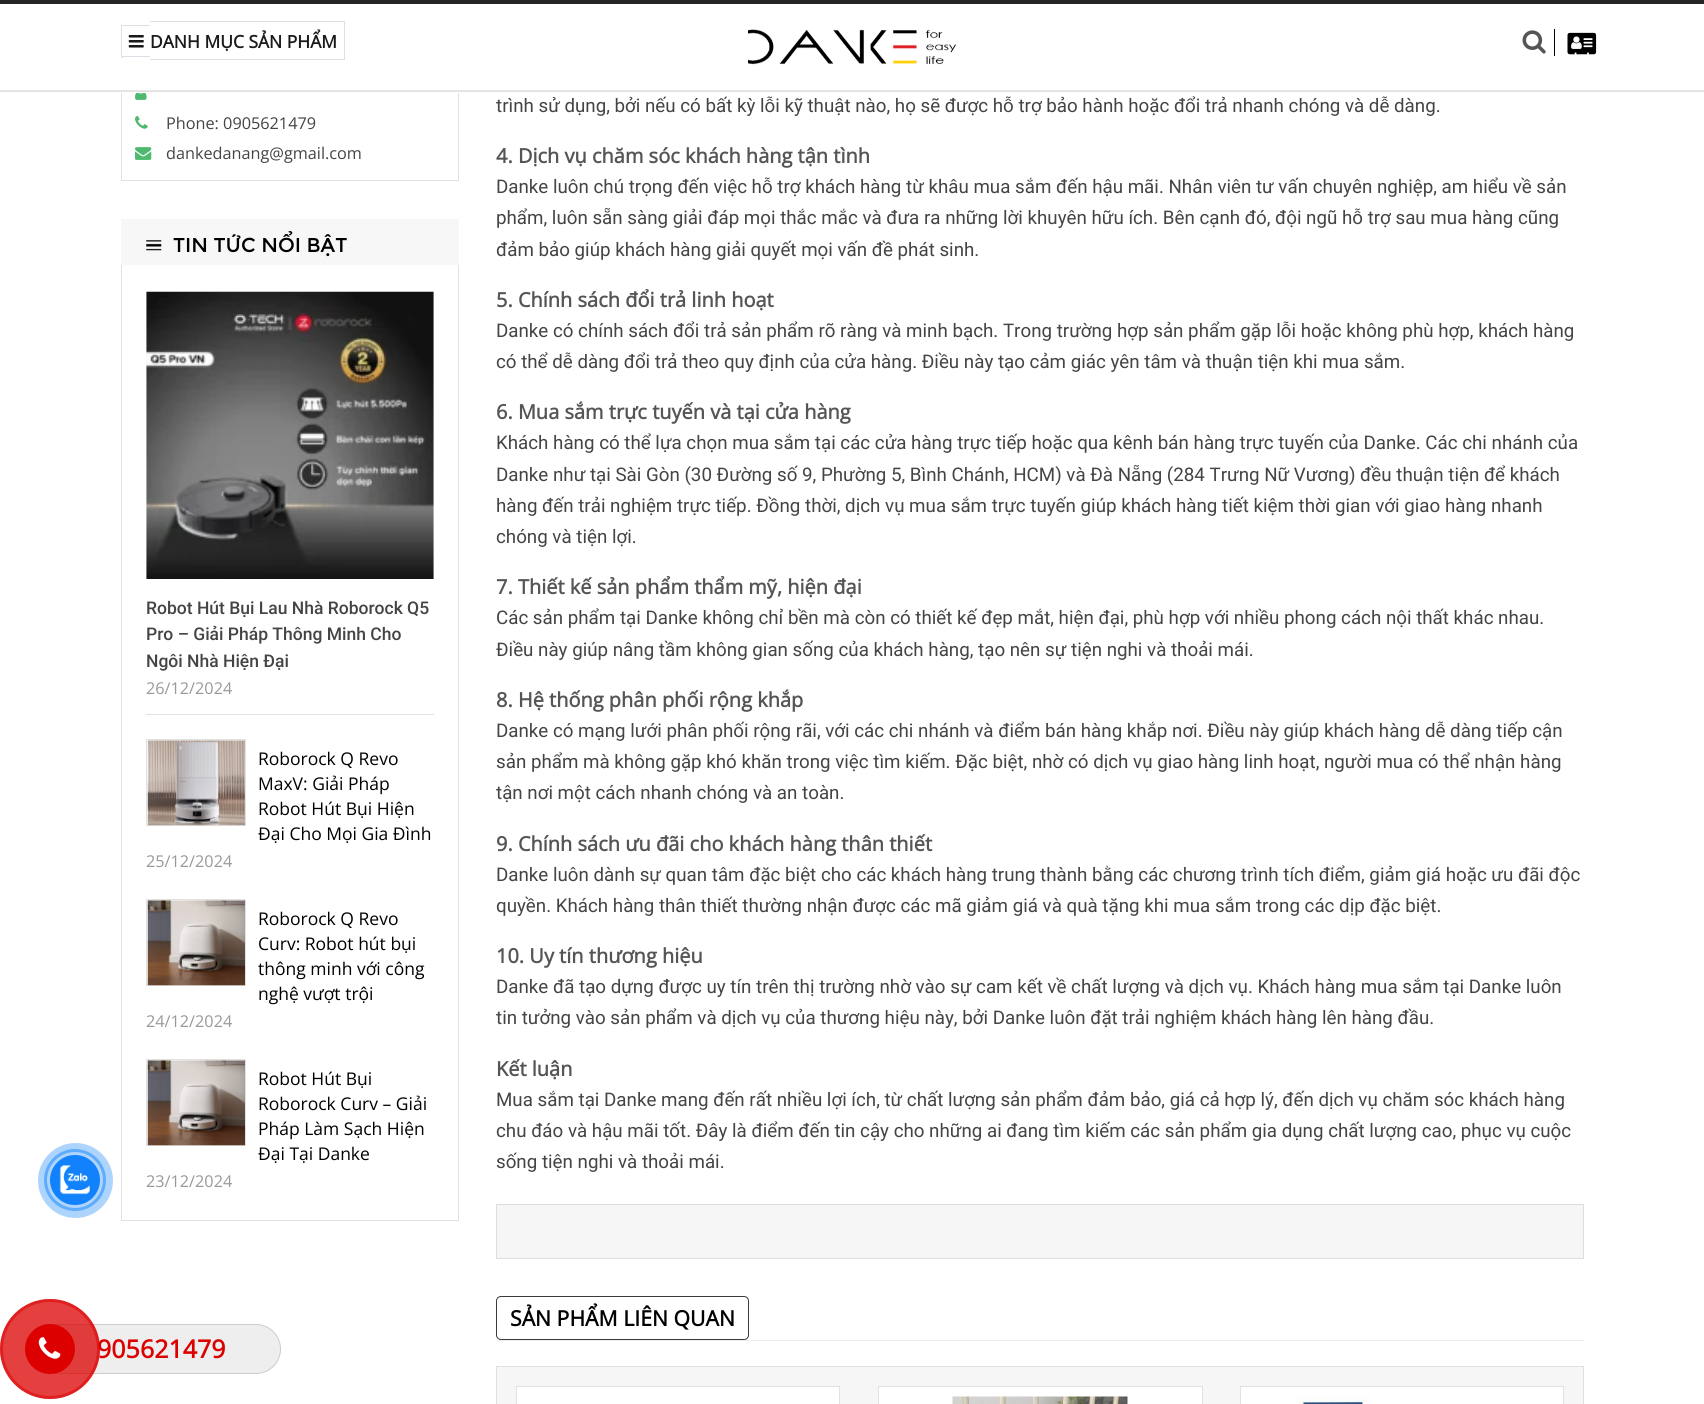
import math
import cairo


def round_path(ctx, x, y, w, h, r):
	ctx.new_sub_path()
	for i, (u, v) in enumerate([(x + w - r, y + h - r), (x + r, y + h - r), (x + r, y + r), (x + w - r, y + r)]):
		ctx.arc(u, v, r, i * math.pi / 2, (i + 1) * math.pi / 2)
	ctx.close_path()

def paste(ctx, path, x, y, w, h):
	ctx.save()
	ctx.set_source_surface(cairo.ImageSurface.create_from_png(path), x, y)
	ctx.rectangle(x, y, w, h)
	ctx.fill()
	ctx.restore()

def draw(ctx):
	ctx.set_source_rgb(1, 1, 1)
	ctx.paint()
	ctx.arc(75, 1180, 29.5, 0, 2 * math.pi)
	ctx.set_source_rgb(0.533, 0.757, 0.996)
	ctx.set_line_width(3)
	ctx.stroke()
	ctx.set_source_rgba(0.067, 0.51, 0.988, 0.34)
	ctx.arc(75.5, 1180.5, 37.5, 0, 2 * math.pi)
	ctx.fill()
	ctx.set_source_rgb(0.067, 0.51, 0.988)
	ctx.arc(75, 1180, 25, 0, 2 * math.pi)
	ctx.fill()
	paste(ctx, 'media/1.png', 59, 1165, 31, 30)
	ctx.set_source_rgb(0.882, 0.882, 0.882)
	ctx.rectangle(0, 91, 1704, 1)
	ctx.fill()
	ctx.set_source_rgb(0.145, 0.145, 0.145)
	ctx.rectangle(0, 0, 1704, 4)
	ctx.fill()
	ctx.set_source_rgb(0.906, 0.906, 0.906)
	ctx.rectangle(0, 90, 1704, 1)
	ctx.fill()
	ctx.set_source_rgb(0.867, 0.875, 0.902)
	ctx.rectangle(121, 25, 29, 1)
	ctx.rectangle(121, 56, 29, 1)
	ctx.rectangle(121, 25, 1, 33)
	ctx.rectangle(150, 21, 195, 1)
	ctx.rectangle(344, 21, 1, 39)
	ctx.rectangle(150, 59, 195, 1)
	ctx.fill()
	paste(ctx, 'media/2.png', 128, 35, 16, 13)
	ctx.select_font_face('Open Sans', cairo.FONT_SLANT_NORMAL, cairo.FONT_WEIGHT_BOLD)
	ctx.set_font_size(17.5)
	ctx.set_source_rgb(0.102, 0.102, 0.102)
	ctx.move_to(150, 48)
	ctx.show_text('DANH MỤC SẢN PHẨM')
	paste(ctx, 'media/3.png', 748, 29, 208, 36)
	paste(ctx, 'media/4.png', 1522, 30, 24, 24)
	ctx.set_source_rgb(0, 0, 0)
	ctx.rectangle(1554, 29, 1, 27)
	ctx.fill()
	paste(ctx, 'media/5.png', 1567, 32, 30, 23)
	ctx.set_source_rgb(0.882, 0.882, 0.882)
	ctx.rectangle(458, 93, 1, 88)
	ctx.rectangle(121, 180, 338, 1)
	ctx.rectangle(121, 93, 1, 88)
	ctx.fill()
	paste(ctx, 'media/6.png', 135, 93, 12, 7)
	paste(ctx, 'media/7.png', 135, 116, 13, 13)
	ctx.select_font_face('Open Sans')
	ctx.set_font_size(16.25)
	ctx.set_source_rgb(0.267, 0.267, 0.267)
	ctx.move_to(166, 129)
	ctx.show_text('Phone: 0905621479')
	paste(ctx, 'media/8.png', 135, 147, 17, 13)
	ctx.move_to(166, 159)
	ctx.show_text('dankedanang@gmail.com')
	ctx.set_source_rgb(0.965, 0.965, 0.965)
	ctx.rectangle(121, 219, 338, 46)
	ctx.fill()
	paste(ctx, 'media/9.png', 146, 240, 16, 11)
	ctx.select_font_face('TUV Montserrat')
	ctx.set_font_size(20)
	ctx.set_source_rgb(0, 0, 0)
	ctx.move_to(173, 252)
	ctx.show_text('TIN TỨC NỔI BẬT')
	ctx.set_source_rgb(0.882, 0.882, 0.882)
	ctx.rectangle(458, 265, 1, 956)
	ctx.rectangle(121, 1220, 338, 1)
	ctx.rectangle(121, 265, 1, 956)
	ctx.rectangle(146, 714, 288, 1)
	ctx.fill()
	paste(ctx, 'media/10.png', 146, 291, 288, 288)
	ctx.select_font_face('Roboto Medium')
	ctx.set_font_size(17.5)
	ctx.set_source_rgb(0.267, 0.267, 0.267)
	for x, y, s in [
		(146, 614, 'Robot Hút Bụi Lau Nhà Roborock Q5'),
		(146, 640, 'Pro – Giải Pháp Thông Minh Cho'),
		(146, 667, 'Ngôi Nhà Hiện Đại'),
	]:
		ctx.move_to(x, y)
		ctx.show_text(s)
	ctx.select_font_face('Open Sans')
	ctx.set_font_size(16.25)
	ctx.set_source_rgb(0.6, 0.6, 0.6)
	ctx.move_to(146, 694)
	ctx.show_text('26/12/2024')
	ctx.rectangle(146.5, 739.5, 99, 86)
	ctx.set_source_rgb(0.882, 0.882, 0.882)
	ctx.set_line_width(1)
	ctx.stroke()
	paste(ctx, 'media/11.png', 147, 740, 98, 86)
	ctx.set_font_size(17.5)
	ctx.set_source_rgb(0, 0, 0)
	for x, y, s in [
		(258, 765, 'Roborock Q Revo'),
		(258, 790, 'MaxV: Giải Pháp'),
		(258, 815, 'Robot Hút Bụi Hiện'),
		(258, 840, 'Đại Cho Mọi Gia Đình'),
	]:
		ctx.move_to(x, y)
		ctx.show_text(s)
	ctx.set_font_size(16.25)
	ctx.set_source_rgb(0.6, 0.6, 0.6)
	ctx.move_to(146, 867)
	ctx.show_text('25/12/2024')
	ctx.rectangle(146.5, 899.5, 99, 86)
	ctx.set_source_rgb(0.882, 0.882, 0.882)
	ctx.stroke()
	paste(ctx, 'media/12.png', 147, 900, 98, 86)
	ctx.set_font_size(17.5)
	ctx.set_source_rgb(0, 0, 0)
	for x, y, s in [
		(258, 925, 'Roborock Q Revo'),
		(258, 950, 'Curv: Robot hút bụi'),
		(258, 975, 'thông minh với công'),
		(258, 1000, 'nghệ vượt trội'),
	]:
		ctx.move_to(x, y)
		ctx.show_text(s)
	ctx.set_font_size(16.25)
	ctx.set_source_rgb(0.6, 0.6, 0.6)
	ctx.move_to(146, 1027)
	ctx.show_text('24/12/2024')
	ctx.rectangle(146.5, 1059.5, 99, 86)
	ctx.set_source_rgb(0.882, 0.882, 0.882)
	ctx.stroke()
	paste(ctx, 'media/13.png', 147, 1060, 98, 86)
	ctx.set_font_size(17.5)
	ctx.set_source_rgb(0, 0, 0)
	for x, y, s in [
		(258, 1085, 'Robot Hút Bụi'),
		(258, 1110, 'Roborock Curv – Giải'),
		(258, 1135, 'Pháp Làm Sạch Hiện'),
		(258, 1160, 'Đại Tại Danke'),
	]:
		ctx.move_to(x, y)
		ctx.show_text(s)
	ctx.set_font_size(16.25)
	ctx.set_source_rgb(0.6, 0.6, 0.6)
	ctx.move_to(146, 1187)
	ctx.show_text('23/12/2024')
	ctx.select_font_face('Roboto')
	ctx.set_font_size(18.75)
	ctx.set_source_rgb(0.267, 0.267, 0.267)
	ctx.move_to(496, 112)
	ctx.show_text('trình sử dụng, bởi nếu có bất kỳ lỗi kỹ thuật nào, họ sẽ được hỗ trợ bảo hành hoặc đổi trả nhanh chóng và dễ dàng.')
	ctx.select_font_face('Open Sans', cairo.FONT_SLANT_NORMAL, cairo.FONT_WEIGHT_BOLD)
	ctx.set_font_size(20)
	ctx.set_source_rgb(0.333, 0.333, 0.333)
	ctx.move_to(496, 163)
	ctx.show_text('4. Dịch vụ chăm sóc khách hàng tận tình')
	ctx.select_font_face('Roboto')
	ctx.set_font_size(18.75)
	ctx.set_source_rgb(0.267, 0.267, 0.267)
	for x, y, s in [
		(496, 193, 'Danke luôn chú trọng đến việc hỗ trợ khách hàng từ khâu mua sắm đến hậu mãi. Nhân viên tư vấn chuyên nghiệp, am hiểu về sản'),
		(496, 224, 'phẩm, luôn sẵn sàng giải đáp mọi thắc mắc và đưa ra những lời khuyên hữu ích. Bên cạnh đó, đội ngũ hỗ trợ sau mua hàng cũng'),
		(496, 256, 'đảm bảo giúp khách hàng giải quyết mọi vấn đề phát sinh.'),
	]:
		ctx.move_to(x, y)
		ctx.show_text(s)
	ctx.select_font_face('Open Sans', cairo.FONT_SLANT_NORMAL, cairo.FONT_WEIGHT_BOLD)
	ctx.set_font_size(20)
	ctx.set_source_rgb(0.333, 0.333, 0.333)
	ctx.move_to(496, 307)
	ctx.show_text('5. Chính sách đổi trả linh hoạt')
	ctx.select_font_face('Roboto')
	ctx.set_font_size(18.75)
	ctx.set_source_rgb(0.267, 0.267, 0.267)
	ctx.move_to(496, 337)
	ctx.show_text('Danke có chính sách đổi trả sản phẩm rõ ràng và minh bạch. Trong trường hợp sản phẩm gặp lỗi hoặc không phù hợp, khách hàng')
	ctx.move_to(496, 368)
	ctx.show_text('có thể dễ dàng đổi trả theo quy định của cửa hàng. Điều này tạo cảm giác yên tâm và thuận tiện khi mua sắm.')
	ctx.select_font_face('Open Sans', cairo.FONT_SLANT_NORMAL, cairo.FONT_WEIGHT_BOLD)
	ctx.set_font_size(20)
	ctx.set_source_rgb(0.333, 0.333, 0.333)
	ctx.move_to(496, 419)
	ctx.show_text('6. Mua sắm trực tuyến và tại cửa hàng')
	ctx.select_font_face('Roboto')
	ctx.set_font_size(18.75)
	ctx.set_source_rgb(0.267, 0.267, 0.267)
	for x, y, s in [
		(496, 449, 'Khách hàng có thể lựa chọn mua sắm tại các cửa hàng trực tiếp hoặc qua kênh bán hàng trực tuyến của Danke. Các chi nhánh của'),
		(496, 481, 'Danke như tại Sài Gòn (30 Đường số 9, Phường 5, Bình Chánh, HCM) và Đà Nẵng (284 Trưng Nữ Vương) đều thuận tiện để khách'),
		(496, 512, 'hàng đến trải nghiệm trực tiếp. Đồng thời, dịch vụ mua sắm trực tuyến giúp khách hàng tiết kiệm thời gian với giao hàng nhanh'),
		(496, 543, 'chóng và tiện lợi.'),
	]:
		ctx.move_to(x, y)
		ctx.show_text(s)
	ctx.select_font_face('Open Sans', cairo.FONT_SLANT_NORMAL, cairo.FONT_WEIGHT_BOLD)
	ctx.set_font_size(20)
	ctx.set_source_rgb(0.333, 0.333, 0.333)
	ctx.move_to(496, 594)
	ctx.show_text('7. Thiết kế sản phẩm thẩm mỹ, hiện đại')
	ctx.select_font_face('Roboto')
	ctx.set_font_size(18.75)
	ctx.set_source_rgb(0.267, 0.267, 0.267)
	ctx.move_to(496, 624)
	ctx.show_text('Các sản phẩm tại Danke không chỉ bền mà còn có thiết kế đẹp mắt, hiện đại, phù hợp với nhiều phong cách nội thất khác nhau.')
	ctx.move_to(496, 656)
	ctx.show_text('Điều này giúp nâng tầm không gian sống của khách hàng, tạo nên sự tiện nghi và thoải mái.')
	ctx.select_font_face('Open Sans', cairo.FONT_SLANT_NORMAL, cairo.FONT_WEIGHT_BOLD)
	ctx.set_font_size(20)
	ctx.set_source_rgb(0.333, 0.333, 0.333)
	ctx.move_to(496, 707)
	ctx.show_text('8. Hệ thống phân phối rộng khắp')
	ctx.select_font_face('Roboto')
	ctx.set_font_size(18.75)
	ctx.set_source_rgb(0.267, 0.267, 0.267)
	for x, y, s in [
		(496, 737, 'Danke có mạng lưới phân phối rộng rãi, với các chi nhánh và điểm bán hàng khắp nơi. Điều này giúp khách hàng dễ dàng tiếp cận'),
		(496, 768, 'sản phẩm mà không gặp khó khăn trong việc tìm kiếm. Đặc biệt, nhờ có dịch vụ giao hàng linh hoạt, người mua có thể nhận hàng'),
		(496, 799, 'tận nơi một cách nhanh chóng và an toàn.'),
	]:
		ctx.move_to(x, y)
		ctx.show_text(s)
	ctx.select_font_face('Open Sans', cairo.FONT_SLANT_NORMAL, cairo.FONT_WEIGHT_BOLD)
	ctx.set_font_size(20)
	ctx.set_source_rgb(0.333, 0.333, 0.333)
	ctx.move_to(496, 851)
	ctx.show_text('9. Chính sách ưu đãi cho khách hàng thân thiết')
	ctx.select_font_face('Roboto')
	ctx.set_font_size(18.75)
	ctx.set_source_rgb(0.267, 0.267, 0.267)
	ctx.move_to(496, 881)
	ctx.show_text('Danke luôn dành sự quan tâm đặc biệt cho các khách hàng trung thành bằng các chương trình tích điểm, giảm giá hoặc ưu đãi độc')
	ctx.move_to(496, 912)
	ctx.show_text('quyền. Khách hàng thân thiết thường nhận được các mã giảm giá và quà tặng khi mua sắm trong các dịp đặc biệt.')
	ctx.select_font_face('Open Sans', cairo.FONT_SLANT_NORMAL, cairo.FONT_WEIGHT_BOLD)
	ctx.set_font_size(20)
	ctx.set_source_rgb(0.333, 0.333, 0.333)
	ctx.move_to(496, 963)
	ctx.show_text('10. Uy tín thương hiệu')
	ctx.select_font_face('Roboto')
	ctx.set_font_size(18.75)
	ctx.set_source_rgb(0.267, 0.267, 0.267)
	ctx.move_to(496, 993)
	ctx.show_text('Danke đã tạo dựng được uy tín trên thị trường nhờ vào sự cam kết về chất lượng và dịch vụ. Khách hàng mua sắm tại Danke luôn')
	ctx.move_to(496, 1024)
	ctx.show_text('tin tưởng vào sản phẩm và dịch vụ của thương hiệu này, bởi Danke luôn đặt trải nghiệm khách hàng lên hàng đầu.')
	ctx.select_font_face('Open Sans', cairo.FONT_SLANT_NORMAL, cairo.FONT_WEIGHT_BOLD)
	ctx.set_font_size(20)
	ctx.set_source_rgb(0.333, 0.333, 0.333)
	ctx.move_to(496, 1076)
	ctx.show_text('Kết luận')
	ctx.select_font_face('Roboto')
	ctx.set_font_size(18.75)
	ctx.set_source_rgb(0.267, 0.267, 0.267)
	for x, y, s in [
		(496, 1106, 'Mua sắm tại Danke mang đến rất nhiều lợi ích, từ chất lượng sản phẩm đảm bảo, giá cả hợp lý, đến dịch vụ chăm sóc khách hàng'),
		(496, 1137, 'chu đáo và hậu mãi tốt. Đây là điểm đến tin cậy cho những ai đang tìm kiếm các sản phẩm gia dụng chất lượng cao, phục vụ cuộc'),
		(496, 1168, 'sống tiện nghi và thoải mái.'),
	]:
		ctx.move_to(x, y)
		ctx.show_text(s)
	ctx.set_source_rgb(0.961, 0.961, 0.961)
	ctx.rectangle(496.5, 1204.5, 1087, 54)
	ctx.fill_preserve()
	ctx.set_source_rgb(0.867, 0.867, 0.867)
	ctx.stroke()
	round_path(ctx, 496.5, 1296.5, 252, 43, 4.5)
	ctx.set_source_rgb(0.231, 0.231, 0.231)
	ctx.stroke()
	ctx.select_font_face('Open Sans', cairo.FONT_SLANT_NORMAL, cairo.FONT_WEIGHT_BOLD)
	ctx.set_font_size(21.25)
	ctx.set_source_rgb(0, 0, 0)
	ctx.move_to(510, 1326)
	ctx.show_text('SẢN PHẨM LIÊN QUAN')
	ctx.set_source_rgb(0.933, 0.933, 0.933)
	ctx.rectangle(496, 1340, 1088, 1)
	ctx.fill()
	ctx.set_source_rgb(0.961, 0.961, 0.961)
	ctx.rectangle(496.5, 1366.5, 1087, 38)
	ctx.fill_preserve()
	ctx.set_source_rgb(0.882, 0.882, 0.882)
	ctx.stroke()
	ctx.set_source_rgb(1, 1, 1)
	ctx.rectangle(516.5, 1386.5, 323, 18)
	ctx.fill_preserve()
	ctx.set_source_rgb(0.882, 0.882, 0.882)
	ctx.stroke()
	ctx.set_source_rgb(1, 1, 1)
	ctx.rectangle(878.5, 1386.5, 324, 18)
	ctx.fill_preserve()
	ctx.set_source_rgb(0.882, 0.882, 0.882)
	ctx.stroke()
	paste(ctx, 'media/14.png', 952, 1396, 176, 8)
	ctx.set_source_rgb(1, 1, 1)
	ctx.rectangle(1240.5, 1386.5, 323, 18)
	ctx.fill_preserve()
	ctx.set_source_rgb(0.882, 0.882, 0.882)
	ctx.stroke()
	paste(ctx, 'media/15.png', 1297, 1396, 75, 8)
	ctx.set_source_rgb(0.933, 0.933, 0.933)
	round_path(ctx, 25.5, 1324.5, 255, 49, 24.5)
	ctx.fill_preserve()
	ctx.set_source_rgb(0.8, 0.8, 0.8)
	ctx.stroke()
	ctx.set_font_size(25)
	ctx.set_source_rgb(0.863, 0.004, 0)
	ctx.move_to(97, 1358)
	ctx.show_text('905621479')
	ctx.new_path()
	ctx.arc(50, 1349, 48.5, 0, 2 * math.pi)
	ctx.set_source_rgba(0.863, 0.004, 0, 0.5)
	ctx.set_line_width(3)
	ctx.stroke()
	ctx.set_source_rgba(0.863, 0.004, 0, 0.75)
	ctx.arc(50, 1349, 50, 0, 2 * math.pi)
	ctx.fill()
	ctx.set_source_rgb(0.863, 0.004, 0)
	ctx.arc(50, 1349, 25, 0, 2 * math.pi)
	ctx.fill()
	paste(ctx, 'media/16.png', 38, 1337, 23, 22)


surface = cairo.ImageSurface(cairo.FORMAT_RGB24, 1704, 1404)
ctx = cairo.Context(surface)
options = cairo.FontOptions()
options.set_hint_metrics(cairo.HINT_METRICS_OFF)
options.set_hint_style(cairo.HINT_STYLE_NONE)
ctx.set_font_options(options)
ctx.set_miter_limit(4)
draw(ctx)
surface.write_to_png('image.png')
